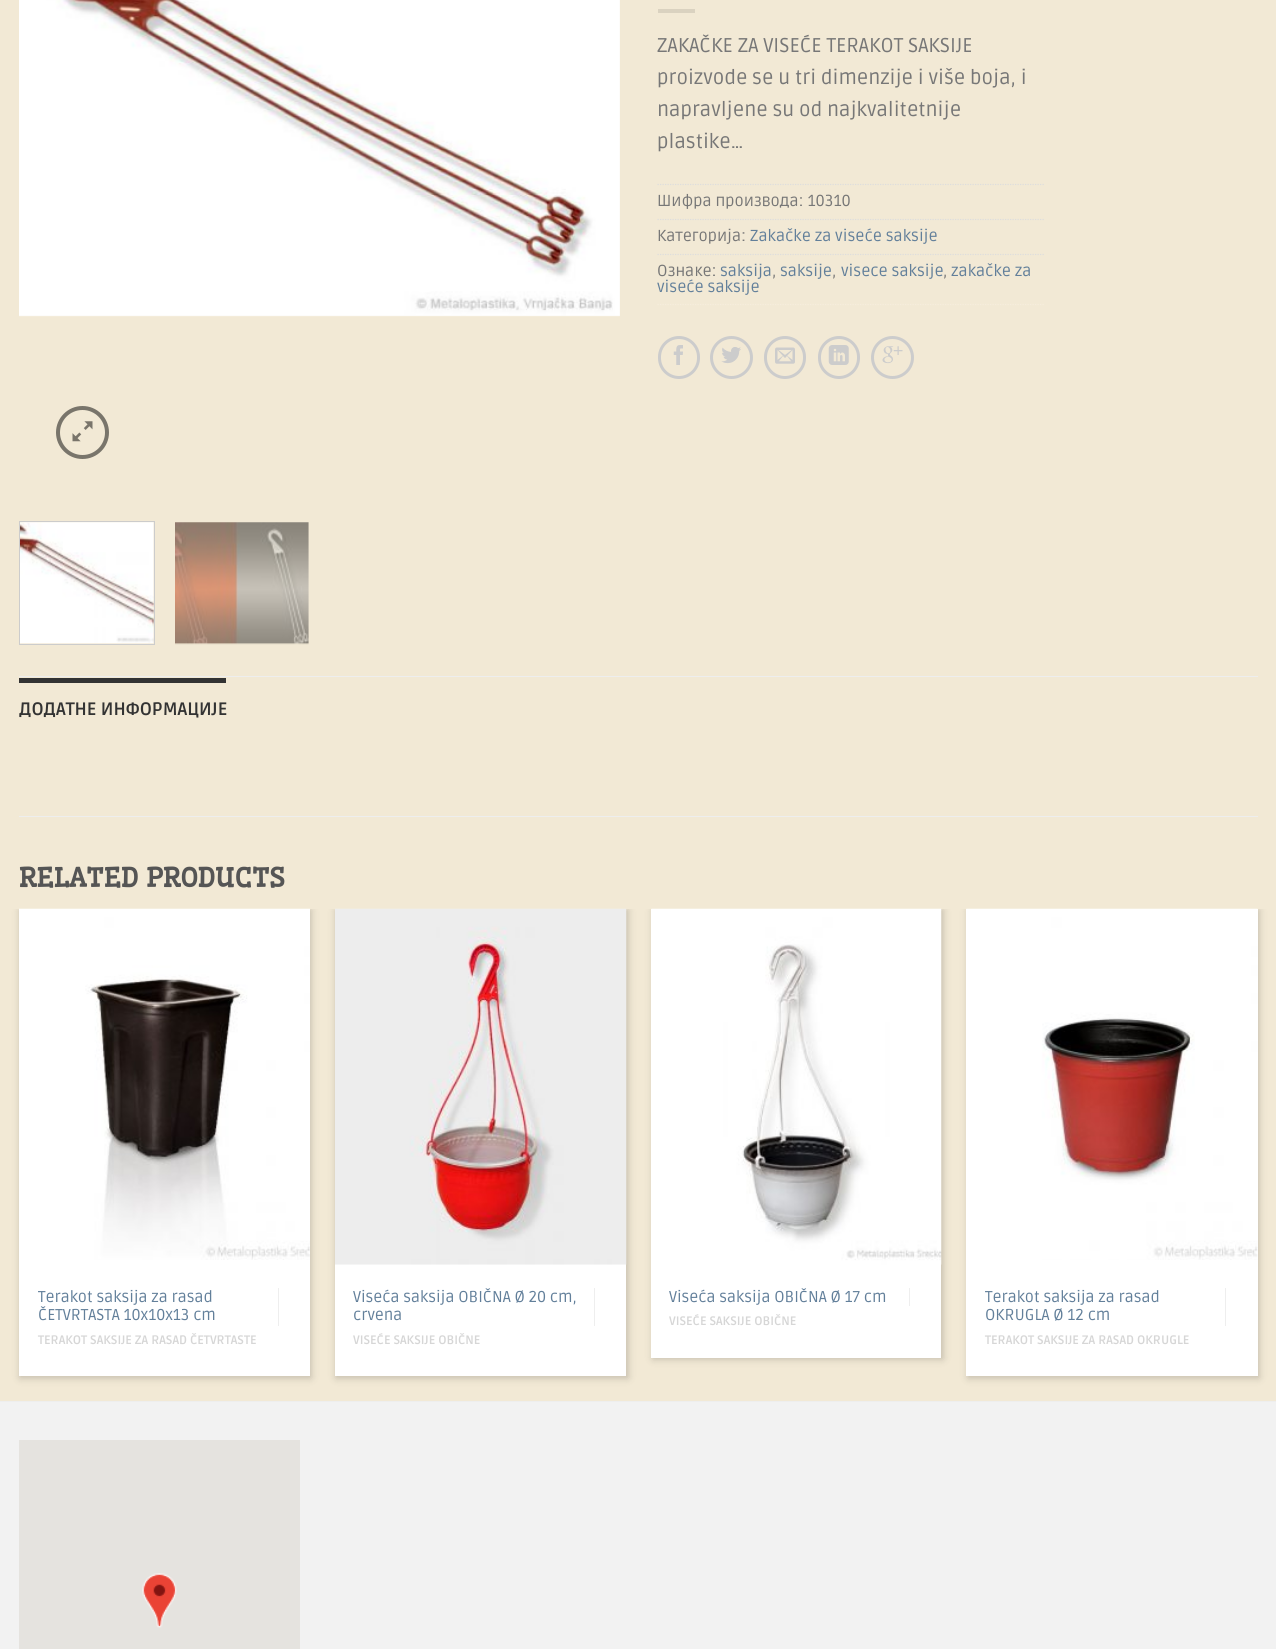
import math
import cairo


def round_path(ctx, x, y, w, h, r):
	ctx.new_sub_path()
	for i, (u, v) in enumerate([(x + w - r, y + h - r), (x + r, y + h - r), (x + r, y + r), (x + w - r, y + r)]):
		ctx.arc(u, v, r, i * math.pi / 2, (i + 1) * math.pi / 2)
	ctx.close_path()

def blur_box(ctx, x, y, w, h, r, blur, alpha):
	ctx.push_group_with_content(cairo.CONTENT_ALPHA)
	ctx.set_operator(cairo.OPERATOR_SOURCE)
	for i in range(15, -16, -2):
		e = blur * i / 6
		if min(w, h) + 2 * e > 0:
			ctx.set_source_rgba(0, 0, 0, alpha * math.erfc((i - 1) / 8.5) / 2)
			round_path(ctx, x - e, y - e, w + 2 * e, h + 2 * e, max(0, min(r + e + blur * .6, min(w, h) / 2 + e)))
			ctx.fill()
	ctx.mask(ctx.pop_group())

def paste(ctx, path, x, y, w, h):
	ctx.save()
	ctx.set_source_surface(cairo.ImageSurface.create_from_png(path), x, y)
	ctx.rectangle(x, y, w, h)
	ctx.fill()
	ctx.restore()

def draw(ctx):
	ctx.set_source_rgb(0.949, 0.914, 0.835)
	ctx.paint()
	paste(ctx, 'media/1.png', 19, 0, 601, 317)
	ctx.arc(82.5, 432.5, 24.5, 0, 2 * math.pi)
	ctx.set_source_rgb(0.475, 0.459, 0.42)
	ctx.set_line_width(4)
	ctx.stroke()
	paste(ctx, 'media/2.png', 72, 421, 21, 21)
	ctx.rectangle(19.5, 521.5, 135, 123)
	ctx.set_source_rgb(0.8, 0.8, 0.8)
	ctx.set_line_width(1)
	ctx.stroke()
	paste(ctx, 'media/3.png', 20, 522, 134, 122)
	paste(ctx, 'media/4.png', 175, 522, 134, 123)
	ctx.set_source_rgb(0.855, 0.824, 0.753)
	ctx.rectangle(658, 9, 37, 4)
	ctx.fill()
	ctx.select_font_face('Ruda')
	ctx.set_font_size(20)
	ctx.set_source_rgb(0.467, 0.467, 0.467)
	for x, y, s in [
		(657, 52, 'ZAKAČKE ZA VISEĆE TERAKOT SAKSIJE'),
		(657, 84, 'proizvode se u tri dimenzije i više boja, i'),
		(657, 116, 'napravljene su od najkvalitetnije'),
		(657, 148, 'plastike…'),
	]:
		ctx.move_to(x, y)
		ctx.show_text(s)
	ctx.new_path()
	ctx.move_to(657.5, 184.5)
	ctx.line_to(1045, 184.5)
	ctx.set_source_rgb(0.867, 0.867, 0.867)
	ctx.set_line_width(1.2)
	ctx.set_dash([1.25, 1.25])
	ctx.stroke()
	ctx.set_font_size(16)
	ctx.set_source_rgb(0.467, 0.467, 0.467)
	ctx.move_to(657, 206)
	ctx.show_text('Шифра производа: 10310')
	ctx.new_path()
	ctx.move_to(657.5, 219.5)
	ctx.line_to(1045, 219.5)
	ctx.set_source_rgb(0.867, 0.867, 0.867)
	ctx.stroke()
	ctx.set_source_rgb(0.467, 0.467, 0.467)
	ctx.move_to(657, 241)
	ctx.show_text('Категорија:')
	ctx.set_source_rgb(0.384, 0.498, 0.604)
	ctx.move_to(750, 241)
	ctx.show_text('Zakačke za viseće saksije')
	ctx.new_path()
	ctx.move_to(657.5, 254.5)
	ctx.line_to(1045, 254.5)
	ctx.set_source_rgb(0.867, 0.867, 0.867)
	ctx.stroke()
	ctx.set_source_rgb(0.467, 0.467, 0.467)
	ctx.move_to(657, 276)
	ctx.show_text('Ознаке:')
	ctx.set_source_rgb(0.384, 0.498, 0.604)
	ctx.move_to(720, 276)
	ctx.show_text('saksija')
	ctx.set_source_rgb(0.467, 0.467, 0.467)
	ctx.move_to(772, 276)
	ctx.show_text(',')
	ctx.set_source_rgb(0.384, 0.498, 0.604)
	ctx.move_to(780, 276)
	ctx.show_text('saksije')
	ctx.set_source_rgb(0.467, 0.467, 0.467)
	ctx.move_to(832, 276)
	ctx.show_text(',')
	ctx.set_source_rgb(0.384, 0.498, 0.604)
	ctx.move_to(841, 276)
	ctx.show_text('visece saksije')
	ctx.set_source_rgb(0.467, 0.467, 0.467)
	ctx.move_to(943, 276)
	ctx.show_text(',')
	ctx.set_source_rgb(0.384, 0.498, 0.604)
	ctx.move_to(951, 276)
	ctx.show_text('zakačke za')
	ctx.move_to(657, 292)
	ctx.show_text('viseće saksije')
	ctx.new_path()
	ctx.move_to(657.5, 304.5)
	ctx.line_to(1045, 304.5)
	ctx.set_source_rgb(0.961, 0.929, 0.867)
	ctx.stroke()
	round_path(ctx, 659.5, 337.5, 39, 40, 19.5)
	ctx.set_source_rgb(0.8, 0.8, 0.8)
	ctx.set_line_width(3)
	ctx.set_dash([])
	ctx.stroke()
	paste(ctx, 'media/5.png', 673, 345, 10, 20)
	ctx.arc(731.5, 357.5, 20, 0, 2 * math.pi)
	ctx.stroke()
	paste(ctx, 'media/6.png', 721, 347, 20, 17)
	round_path(ctx, 765.5, 337.5, 39, 40, 19.5)
	ctx.stroke()
	paste(ctx, 'media/7.png', 775, 347, 20, 17)
	round_path(ctx, 819.5, 337.5, 39, 40, 19.5)
	ctx.stroke()
	paste(ctx, 'media/8.png', 828, 345, 21, 20)
	ctx.arc(892.5, 357.5, 20, 0, 2 * math.pi)
	ctx.stroke()
	paste(ctx, 'media/9.png', 882, 346, 21, 18)
	ctx.set_source_rgb(0.933, 0.933, 0.933)
	ctx.rectangle(19, 676, 1239, 1)
	ctx.fill()
	ctx.set_source_rgb(0.2, 0.2, 0.2)
	ctx.rectangle(19, 678, 207, 5)
	ctx.fill()
	ctx.select_font_face('Ruda', cairo.FONT_SLANT_NORMAL, cairo.FONT_WEIGHT_BOLD)
	ctx.set_font_size(18)
	ctx.move_to(19, 715)
	ctx.show_text('ДОДАТНЕ ИНФОРМАЦИЈЕ')
	ctx.set_source_rgb(0.933, 0.933, 0.933)
	ctx.rectangle(19, 816, 1239, 1)
	ctx.fill()
	ctx.select_font_face('Wellfleet', cairo.FONT_SLANT_NORMAL, cairo.FONT_WEIGHT_BOLD)
	ctx.set_font_size(26)
	ctx.set_source_rgb(0.333, 0.333, 0.333)
	ctx.move_to(19, 887)
	ctx.show_text('RELATED PRODUCTS')
	ctx.save()
	ctx.rectangle(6, 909, 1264, 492)
	ctx.clip()
	ctx.set_source_rgb(0, 0, 0)
	blur_box(ctx, 20, 910, 291, 468, 0, 4, 0.2)
	ctx.restore()
	ctx.set_source_rgb(1, 1, 1)
	ctx.rectangle(19, 1260, 291, 116)
	ctx.fill()
	paste(ctx, 'media/10.png', 19, 908, 291, 352)
	ctx.set_source_rgb(0.933, 0.933, 0.933)
	ctx.rectangle(278, 1288, 1, 38)
	ctx.fill()
	ctx.select_font_face('Ruda')
	ctx.set_font_size(15.75)
	ctx.set_source_rgb(0.384, 0.498, 0.604)
	ctx.move_to(38, 1302)
	ctx.show_text('Terakot saksija za rasad')
	ctx.move_to(38, 1320)
	ctx.show_text('ČETVRTASTA 10x10x13 cm')
	ctx.select_font_face('Ruda', cairo.FONT_SLANT_NORMAL, cairo.FONT_WEIGHT_BOLD)
	ctx.set_font_size(12.25)
	ctx.set_source_rgb(0.839, 0.839, 0.839)
	ctx.move_to(38, 1344)
	ctx.show_text('TERAKOT SAKSIJE ZA RASAD ČETVRTASTE')
	ctx.save()
	ctx.rectangle(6, 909, 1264, 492)
	ctx.clip()
	ctx.set_source_rgb(0, 0, 0)
	blur_box(ctx, 336, 910, 292, 468, 0, 4, 0.2)
	ctx.restore()
	ctx.set_source_rgb(1, 1, 1)
	ctx.rectangle(335, 1264, 291, 112)
	ctx.fill()
	paste(ctx, 'media/11.png', 335, 908, 292, 357)
	ctx.set_source_rgb(0.933, 0.933, 0.933)
	ctx.rectangle(594, 1288, 1, 38)
	ctx.fill()
	ctx.select_font_face('Ruda')
	ctx.set_font_size(15.75)
	ctx.set_source_rgb(0.384, 0.498, 0.604)
	ctx.move_to(353, 1302)
	ctx.show_text('Viseća saksija OBIČNA Ø 20 cm,')
	ctx.move_to(353, 1320)
	ctx.show_text('crvena')
	ctx.select_font_face('Ruda', cairo.FONT_SLANT_NORMAL, cairo.FONT_WEIGHT_BOLD)
	ctx.set_font_size(12.25)
	ctx.set_source_rgb(0.839, 0.839, 0.839)
	ctx.move_to(353, 1344)
	ctx.show_text('VISEĆE SAKSIJE OBIČNE')
	ctx.save()
	ctx.rectangle(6, 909, 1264, 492)
	ctx.clip()
	ctx.set_source_rgb(0, 0, 0)
	blur_box(ctx, 653, 910, 290, 449, 0, 4, 0.2)
	ctx.restore()
	ctx.set_source_rgb(1, 1, 1)
	ctx.rectangle(651, 909, 290, 449)
	ctx.fill()
	paste(ctx, 'media/12.png', 651, 908, 291, 357)
	ctx.set_source_rgb(0.933, 0.933, 0.933)
	ctx.rectangle(909, 1288, 1, 18)
	ctx.fill()
	ctx.select_font_face('Ruda')
	ctx.set_font_size(15.75)
	ctx.set_source_rgb(0.384, 0.498, 0.604)
	ctx.move_to(669, 1302)
	ctx.show_text('Viseća saksija OBIČNA Ø 17 cm')
	ctx.select_font_face('Ruda', cairo.FONT_SLANT_NORMAL, cairo.FONT_WEIGHT_BOLD)
	ctx.set_font_size(12.25)
	ctx.set_source_rgb(0.839, 0.839, 0.839)
	ctx.move_to(669, 1325)
	ctx.show_text('VISEĆE SAKSIJE OBIČNE')
	ctx.save()
	ctx.rectangle(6, 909, 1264, 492)
	ctx.clip()
	ctx.set_source_rgb(0, 0, 0)
	blur_box(ctx, 968, 910, 291, 468, 0, 4, 0.2)
	ctx.restore()
	ctx.set_source_rgb(1, 1, 1)
	ctx.rectangle(966, 909, 292, 467)
	ctx.fill()
	paste(ctx, 'media/13.png', 966, 908, 292, 352)
	ctx.set_source_rgb(0.933, 0.933, 0.933)
	ctx.rectangle(1225, 1288, 1, 38)
	ctx.fill()
	ctx.select_font_face('Ruda')
	ctx.set_font_size(15.75)
	ctx.set_source_rgb(0.384, 0.498, 0.604)
	ctx.move_to(985, 1302)
	ctx.show_text('Terakot saksija za rasad')
	ctx.move_to(985, 1320)
	ctx.show_text('OKRUGLA Ø 12 cm')
	ctx.select_font_face('Ruda', cairo.FONT_SLANT_NORMAL, cairo.FONT_WEIGHT_BOLD)
	ctx.set_font_size(12.25)
	ctx.set_source_rgb(0.839, 0.839, 0.839)
	ctx.move_to(985, 1344)
	ctx.show_text('TERAKOT SAKSIJE ZA RASAD OKRUGLE')
	ctx.set_source_rgb(0.949, 0.949, 0.949)
	ctx.rectangle(0, 1402, 1276, 247)
	ctx.fill()
	ctx.set_source_rgb(0.933, 0.933, 0.933)
	ctx.rectangle(0, 1401, 1276, 1)
	ctx.fill()
	ctx.set_source_rgb(0.898, 0.89, 0.875)
	ctx.rectangle(19, 1440, 281, 209)
	ctx.fill()
	paste(ctx, 'media/14.png', 142, 1573, 35, 55)


surface = cairo.ImageSurface(cairo.FORMAT_RGB24, 1276, 1649)
ctx = cairo.Context(surface)
options = cairo.FontOptions()
options.set_hint_metrics(cairo.HINT_METRICS_OFF)
options.set_hint_style(cairo.HINT_STYLE_NONE)
ctx.set_font_options(options)
ctx.set_miter_limit(4)
draw(ctx)
surface.write_to_png('image.png')
